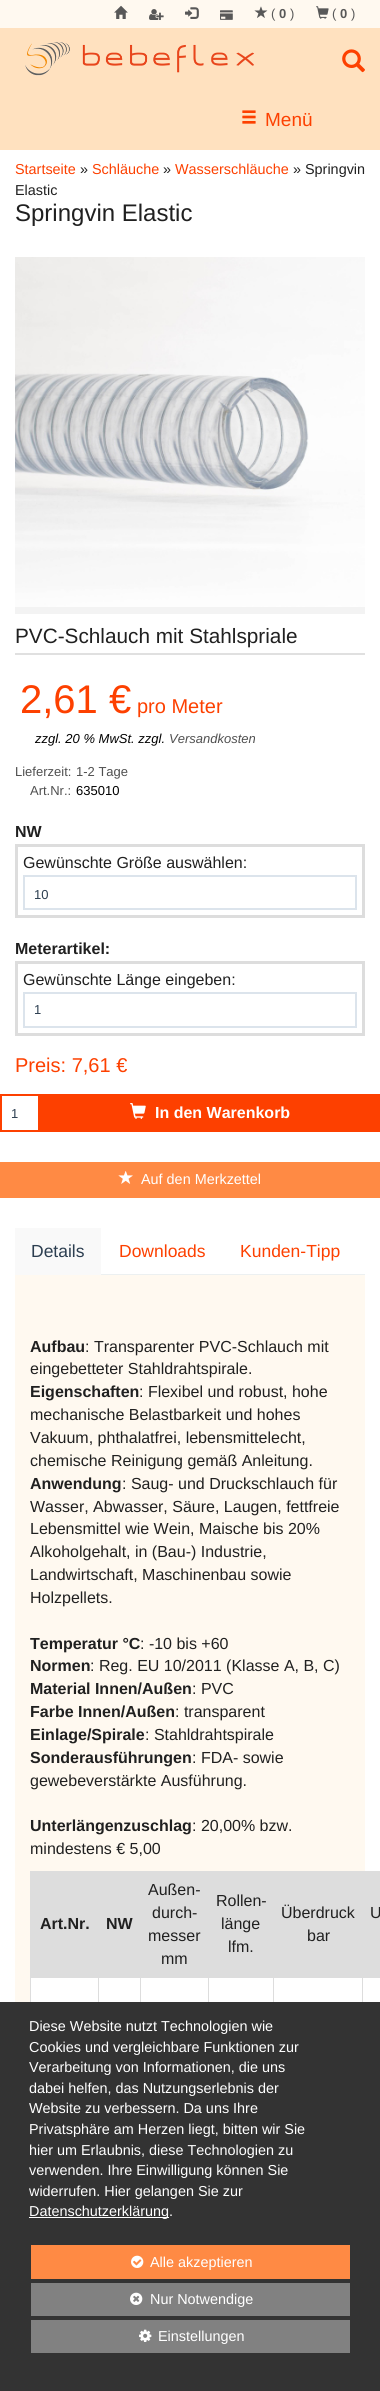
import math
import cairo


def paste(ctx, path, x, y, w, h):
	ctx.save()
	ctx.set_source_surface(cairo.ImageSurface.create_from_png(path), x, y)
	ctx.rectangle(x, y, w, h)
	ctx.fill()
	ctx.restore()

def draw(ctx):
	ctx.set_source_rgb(1, 1, 1)
	ctx.paint()
	ctx.set_source_rgb(1, 0.973, 0.941)
	ctx.rectangle(0, 0, 380, 28)
	ctx.fill()
	paste(ctx, 'media/1.png', 114, 5, 14, 14)
	paste(ctx, 'media/2.png', 149, 9, 15, 11)
	paste(ctx, 'media/3.png', 185, 7, 14, 12)
	paste(ctx, 'media/4.png', 220, 10, 13, 10)
	paste(ctx, 'media/5.png', 254, 6, 14, 12)
	ctx.select_font_face('Liberation Sans')
	ctx.set_font_size(13)
	ctx.set_source_rgb(0.345, 0.345, 0.345)
	ctx.move_to(271, 18)
	ctx.show_text('(')
	ctx.select_font_face('Liberation Sans', cairo.FONT_SLANT_NORMAL, cairo.FONT_WEIGHT_BOLD)
	ctx.move_to(279, 18)
	ctx.show_text('0')
	ctx.select_font_face('Liberation Sans')
	ctx.move_to(290, 18)
	ctx.show_text(')')
	paste(ctx, 'media/6.png', 316, 6, 13, 13)
	ctx.move_to(332, 18)
	ctx.show_text('(')
	ctx.select_font_face('Liberation Sans', cairo.FONT_SLANT_NORMAL, cairo.FONT_WEIGHT_BOLD)
	ctx.move_to(340, 18)
	ctx.show_text('0')
	ctx.select_font_face('Liberation Sans')
	ctx.move_to(351, 18)
	ctx.show_text(')')
	ctx.set_source_rgb(1, 0.882, 0.749)
	ctx.rectangle(0, 28, 380, 122)
	ctx.fill()
	paste(ctx, 'media/7.png', 25, 41, 229, 35)
	paste(ctx, 'media/8.png', 342, 49, 23, 24)
	paste(ctx, 'media/9.png', 242, 110, 14, 14)
	ctx.set_font_size(19)
	ctx.set_source_rgb(0.992, 0.251, 0)
	ctx.move_to(265, 126)
	ctx.show_text('Menü')
	ctx.set_font_size(14.4)
	ctx.move_to(15, 174)
	ctx.show_text('Startseite')
	ctx.set_source_rgb(0.125, 0.125, 0.125)
	ctx.move_to(80, 174)
	ctx.show_text('»')
	ctx.set_source_rgb(0.992, 0.251, 0)
	ctx.move_to(92, 174)
	ctx.show_text('Schläuche')
	ctx.set_source_rgb(0.125, 0.125, 0.125)
	ctx.move_to(163, 174)
	ctx.show_text('»')
	ctx.set_source_rgb(0.992, 0.251, 0)
	ctx.move_to(175, 174)
	ctx.show_text('Wasserschläuche')
	ctx.set_source_rgb(0.125, 0.125, 0.125)
	ctx.move_to(293, 174)
	ctx.show_text('» Springvin')
	ctx.move_to(15, 195)
	ctx.show_text('Elastic')
	ctx.set_font_size(24)
	ctx.move_to(15, 221)
	ctx.show_text('Springvin Elastic')
	ctx.set_source_rgb(0.953, 0.953, 0.953)
	ctx.rectangle(15, 607, 350, 7)
	ctx.fill()
	paste(ctx, 'media/10.png', 15, 257, 350, 350)
	ctx.set_source_rgb(0.878, 0.878, 0.878)
	ctx.rectangle(15, 653, 350, 2)
	ctx.fill()
	ctx.set_font_size(20.75)
	ctx.set_source_rgb(0.125, 0.125, 0.125)
	ctx.move_to(15, 643)
	ctx.show_text('PVC-Schlauch mit Stahlspriale')
	ctx.set_font_size(40)
	ctx.set_source_rgb(0.992, 0.251, 0)
	ctx.move_to(20, 713)
	ctx.show_text('2,61 €')
	ctx.set_font_size(20)
	ctx.move_to(137, 713)
	ctx.show_text('pro Meter')
	ctx.select_font_face('Liberation Sans', cairo.FONT_SLANT_ITALIC)
	ctx.set_font_size(13)
	ctx.set_source_rgb(0, 0, 0)
	ctx.move_to(35, 743)
	ctx.show_text('zzgl. 20 % MwSt. zzgl.')
	ctx.set_source_rgb(0.31, 0.31, 0.31)
	ctx.move_to(169, 743)
	ctx.show_text('Versandkosten')
	ctx.select_font_face('Liberation Sans')
	for x, y, s in [
		(15, 776, 'Lieferzeit:'),
		(76, 776, '1-2 Tage'),
		(30, 795, 'Art.Nr.:'),
	]:
		ctx.move_to(x, y)
		ctx.show_text(s)
	ctx.set_source_rgb(0, 0, 0)
	ctx.move_to(76, 795)
	ctx.show_text('635010')
	ctx.select_font_face('Liberation Sans', cairo.FONT_SLANT_NORMAL, cairo.FONT_WEIGHT_BOLD)
	ctx.set_font_size(16)
	ctx.set_source_rgb(0.125, 0.125, 0.125)
	ctx.move_to(15, 837)
	ctx.show_text('NW')
	ctx.rectangle(16.5, 845.5, 347, 71)
	ctx.set_source_rgb(0.867, 0.867, 0.867)
	ctx.set_line_width(3)
	ctx.stroke()
	ctx.select_font_face('Liberation Sans')
	ctx.set_source_rgb(0.125, 0.125, 0.125)
	ctx.move_to(23, 868)
	ctx.show_text('Gewünschte Größe auswählen:')
	ctx.rectangle(24, 876, 332, 33)
	ctx.set_source_rgb(0.863, 0.894, 0.925)
	ctx.set_line_width(2)
	ctx.stroke()
	ctx.set_font_size(13)
	ctx.set_source_rgb(0.173, 0.243, 0.314)
	ctx.move_to(34, 899)
	ctx.show_text('10')
	ctx.select_font_face('Liberation Sans', cairo.FONT_SLANT_NORMAL, cairo.FONT_WEIGHT_BOLD)
	ctx.set_font_size(16)
	ctx.set_source_rgb(0.125, 0.125, 0.125)
	ctx.move_to(15, 954)
	ctx.show_text('Meterartikel:')
	ctx.rectangle(16.5, 962.5, 347, 72)
	ctx.set_source_rgb(0.867, 0.867, 0.867)
	ctx.set_line_width(3)
	ctx.stroke()
	ctx.select_font_face('Liberation Sans')
	ctx.set_source_rgb(0.125, 0.125, 0.125)
	ctx.move_to(23, 985)
	ctx.show_text('Gewünschte Länge eingeben:')
	ctx.rectangle(24, 993, 332, 34)
	ctx.set_source_rgb(0.863, 0.894, 0.925)
	ctx.set_line_width(2)
	ctx.stroke()
	ctx.set_font_size(13)
	ctx.set_source_rgb(0.173, 0.243, 0.314)
	ctx.move_to(34, 1014)
	ctx.show_text('1')
	ctx.set_font_size(20)
	ctx.set_source_rgb(0.992, 0.251, 0)
	ctx.move_to(15, 1072)
	ctx.show_text('Preis: 7,61 €')
	ctx.rectangle(1, 1095, 38, 36)
	ctx.stroke()
	ctx.set_font_size(13)
	ctx.set_source_rgb(0.173, 0.243, 0.314)
	ctx.move_to(11, 1118)
	ctx.show_text('1')
	ctx.set_source_rgb(0.992, 0.251, 0)
	ctx.rectangle(40, 1094, 340, 38)
	ctx.fill()
	paste(ctx, 'media/11.png', 130, 1103, 16, 16)
	ctx.select_font_face('Liberation Sans', cairo.FONT_SLANT_NORMAL, cairo.FONT_WEIGHT_BOLD)
	ctx.set_font_size(16)
	ctx.set_source_rgb(1, 1, 1)
	ctx.move_to(155, 1118)
	ctx.show_text('In den Warenkorb')
	ctx.set_source_rgb(1, 0.541, 0.267)
	ctx.rectangle(0, 1162, 380, 36)
	ctx.fill()
	paste(ctx, 'media/12.png', 118, 1171, 15, 13)
	ctx.select_font_face('Liberation Sans')
	ctx.set_font_size(14.4)
	ctx.set_source_rgb(1, 1, 1)
	ctx.move_to(141, 1184)
	ctx.show_text('Auf den Merkzettel')
	ctx.set_source_rgb(0.973, 0.973, 0.973)
	ctx.rectangle(15, 1228, 86, 47)
	ctx.fill()
	ctx.set_font_size(17.5)
	ctx.set_source_rgb(0.173, 0.243, 0.314)
	ctx.move_to(31, 1257)
	ctx.show_text('Details')
	ctx.set_source_rgb(0.992, 0.251, 0)
	ctx.move_to(119, 1257)
	ctx.show_text('Downloads')
	ctx.move_to(240, 1257)
	ctx.show_text('Kunden-Tipp')
	ctx.set_source_rgb(1, 0.973, 0.941)
	ctx.rectangle(15, 1275, 350, 727)
	ctx.fill()
	ctx.set_source_rgb(0.925, 0.941, 0.945)
	ctx.rectangle(101, 1274, 264, 1)
	ctx.fill()
	ctx.select_font_face('Liberation Sans', cairo.FONT_SLANT_NORMAL, cairo.FONT_WEIGHT_BOLD)
	ctx.set_font_size(16)
	ctx.set_source_rgb(0.125, 0.125, 0.125)
	ctx.move_to(30, 1352)
	ctx.show_text('Aufbau')
	ctx.select_font_face('Liberation Sans')
	ctx.move_to(85, 1352)
	ctx.show_text(': Transparenter PVC-Schlauch mit')
	ctx.move_to(30, 1374)
	ctx.show_text('eingebetteter Stahldrahtspirale.')
	ctx.select_font_face('Liberation Sans', cairo.FONT_SLANT_NORMAL, cairo.FONT_WEIGHT_BOLD)
	ctx.move_to(30, 1397)
	ctx.show_text('Eigenschaften')
	ctx.select_font_face('Liberation Sans')
	for x, y, s in [
		(139, 1397, ': Flexibel und robust, hohe'),
		(30, 1420, 'mechanische Belastbarkeit und hohes'),
		(30, 1443, 'Vakuum, phthalatfrei, lebensmittelecht,'),
		(30, 1466, 'chemische Reinigung gemäß Anleitung.'),
	]:
		ctx.move_to(x, y)
		ctx.show_text(s)
	ctx.select_font_face('Liberation Sans', cairo.FONT_SLANT_NORMAL, cairo.FONT_WEIGHT_BOLD)
	ctx.move_to(30, 1489)
	ctx.show_text('Anwendung')
	ctx.select_font_face('Liberation Sans')
	for x, y, s in [
		(122, 1489, ': Saug- und Druckschlauch für'),
		(30, 1512, 'Wasser, Abwasser, Säure, Laugen, fettfreie'),
		(30, 1534, 'Lebensmittel wie Wein, Maische bis 20%'),
		(30, 1557, 'Alkoholgehalt, in (Bau-) Industrie,'),
		(30, 1580, 'Landwirtschaft, Maschinenbau sowie'),
		(30, 1603, 'Holzpellets.'),
	]:
		ctx.move_to(x, y)
		ctx.show_text(s)
	ctx.select_font_face('Liberation Sans', cairo.FONT_SLANT_NORMAL, cairo.FONT_WEIGHT_BOLD)
	ctx.move_to(30, 1649)
	ctx.show_text('Temperatur °C')
	ctx.select_font_face('Liberation Sans')
	ctx.move_to(140, 1649)
	ctx.show_text(': -10 bis +60')
	ctx.select_font_face('Liberation Sans', cairo.FONT_SLANT_NORMAL, cairo.FONT_WEIGHT_BOLD)
	ctx.move_to(30, 1671)
	ctx.show_text('Normen')
	ctx.select_font_face('Liberation Sans')
	ctx.move_to(90, 1671)
	ctx.show_text(': Reg. EU 10/2011 (Klasse A, B, C)')
	ctx.select_font_face('Liberation Sans', cairo.FONT_SLANT_NORMAL, cairo.FONT_WEIGHT_BOLD)
	ctx.move_to(30, 1694)
	ctx.show_text('Material Innen/Außen')
	ctx.select_font_face('Liberation Sans')
	ctx.move_to(192, 1694)
	ctx.show_text(': PVC')
	ctx.select_font_face('Liberation Sans', cairo.FONT_SLANT_NORMAL, cairo.FONT_WEIGHT_BOLD)
	ctx.move_to(30, 1717)
	ctx.show_text('Farbe Innen/Außen')
	ctx.select_font_face('Liberation Sans')
	ctx.move_to(175, 1717)
	ctx.show_text(': transparent')
	ctx.select_font_face('Liberation Sans', cairo.FONT_SLANT_NORMAL, cairo.FONT_WEIGHT_BOLD)
	ctx.move_to(30, 1740)
	ctx.show_text('Einlage/Spirale')
	ctx.select_font_face('Liberation Sans')
	ctx.move_to(145, 1740)
	ctx.show_text(': Stahldrahtspirale')
	ctx.select_font_face('Liberation Sans', cairo.FONT_SLANT_NORMAL, cairo.FONT_WEIGHT_BOLD)
	ctx.move_to(30, 1763)
	ctx.show_text('Sonderausführungen')
	ctx.select_font_face('Liberation Sans')
	ctx.move_to(192, 1763)
	ctx.show_text(': FDA- sowie')
	ctx.move_to(30, 1786)
	ctx.show_text('gewebeverstärkte Ausführung.')
	ctx.select_font_face('Liberation Sans', cairo.FONT_SLANT_NORMAL, cairo.FONT_WEIGHT_BOLD)
	ctx.move_to(30, 1831)
	ctx.show_text('Unterlängenzuschlag')
	ctx.select_font_face('Liberation Sans')
	ctx.move_to(192, 1831)
	ctx.show_text(': 20,00% bzw.')
	ctx.move_to(30, 1854)
	ctx.show_text('mindestens € 5,00')
	ctx.set_source_rgb(0.867, 0.867, 0.867)
	ctx.rectangle(30, 1871, 350, 1)
	ctx.rectangle(30, 1871, 1, 131)
	ctx.rectangle(31, 1872, 349, 106)
	ctx.fill()
	ctx.set_source_rgb(0.125, 0.125, 0.125)
	for x, y, s in [
		(148, 1895, 'Außen-'),
		(152, 1918, 'durch-'),
		(148, 1941, 'messer'),
		(161, 1964, 'mm'),
		(216, 1906, 'Rollen-'),
		(221, 1929, 'länge'),
		(228, 1952, 'lfm.'),
		(281, 1918, 'Überdruck'),
		(307, 1941, 'bar'),
		(370, 1918, 'U'),
	]:
		ctx.move_to(x, y)
		ctx.show_text(s)
	ctx.select_font_face('Liberation Sans', cairo.FONT_SLANT_NORMAL, cairo.FONT_WEIGHT_BOLD)
	ctx.move_to(40, 1929)
	ctx.show_text('Art.Nr.')
	ctx.move_to(106, 1929)
	ctx.show_text('NW')
	ctx.set_source_rgb(1, 1, 1)
	ctx.rectangle(31, 1978, 334, 24)
	ctx.fill()
	ctx.set_source_rgb(0.867, 0.867, 0.867)
	ctx.rectangle(98, 1977, 1, 25)
	ctx.rectangle(140, 1977, 1, 25)
	ctx.rectangle(208, 1977, 1, 25)
	ctx.rectangle(273, 1977, 1, 25)
	ctx.rectangle(362, 1977, 1, 25)
	ctx.fill()
	ctx.set_source_rgb(0.2, 0.2, 0.2)
	ctx.rectangle(0, 2002, 380, 389)
	ctx.fill()
	ctx.select_font_face('Liberation Sans')
	ctx.set_font_size(14.4)
	ctx.set_source_rgb(1, 1, 1)
	for x, y, s in [
		(29, 2031, 'Diese Website nutzt Technologien wie'),
		(29, 2052, 'Cookies und vergleichbare Funktionen zur'),
		(29, 2072, 'Verarbeitung von Informationen, die uns'),
		(29, 2093, 'dabei helfen, das Nutzungserlebnis der'),
		(29, 2113, 'Website zu verbessern. Da uns Ihre'),
		(29, 2134, 'Privatsphäre am Herzen liegt, bitten wir Sie'),
		(29, 2155, 'hier um Erlaubnis, diese Technologien zu'),
		(29, 2175, 'verwenden. Ihre Einwilligung können Sie'),
		(29, 2196, 'widerrufen. Hier gelangen Sie zur'),
	]:
		ctx.move_to(x, y)
		ctx.show_text(s)
	ctx.rectangle(29, 2217, 140, 1)
	ctx.fill()
	ctx.move_to(29, 2216)
	ctx.show_text('Datenschutzerklärung.')
	ctx.set_source_rgb(1, 0.541, 0.267)
	ctx.rectangle(31, 2245, 319, 34)
	ctx.fill()
	paste(ctx, 'media/13.png', 131, 2255, 13, 13)
	ctx.set_source_rgb(1, 1, 1)
	ctx.move_to(150, 2267)
	ctx.show_text('Alle akzeptieren')
	ctx.set_source_rgb(0.506, 0.506, 0.506)
	ctx.rectangle(31, 2283, 319, 33)
	ctx.fill()
	paste(ctx, 'media/14.png', 130, 2292, 13, 13)
	ctx.set_source_rgb(1, 1, 1)
	ctx.move_to(150, 2304)
	ctx.show_text('Nur Notwendige')
	ctx.set_source_rgb(0.506, 0.506, 0.506)
	ctx.rectangle(31, 2320, 319, 33)
	ctx.fill()
	paste(ctx, 'media/15.png', 139, 2329, 13, 13)
	ctx.set_source_rgb(1, 1, 1)
	ctx.move_to(158, 2341)
	ctx.show_text('Einstellungen')


surface = cairo.ImageSurface(cairo.FORMAT_RGB24, 380, 2391)
ctx = cairo.Context(surface)
options = cairo.FontOptions()
options.set_hint_metrics(cairo.HINT_METRICS_OFF)
options.set_hint_style(cairo.HINT_STYLE_NONE)
ctx.set_font_options(options)
ctx.set_miter_limit(4)
draw(ctx)
surface.write_to_png('image.png')
